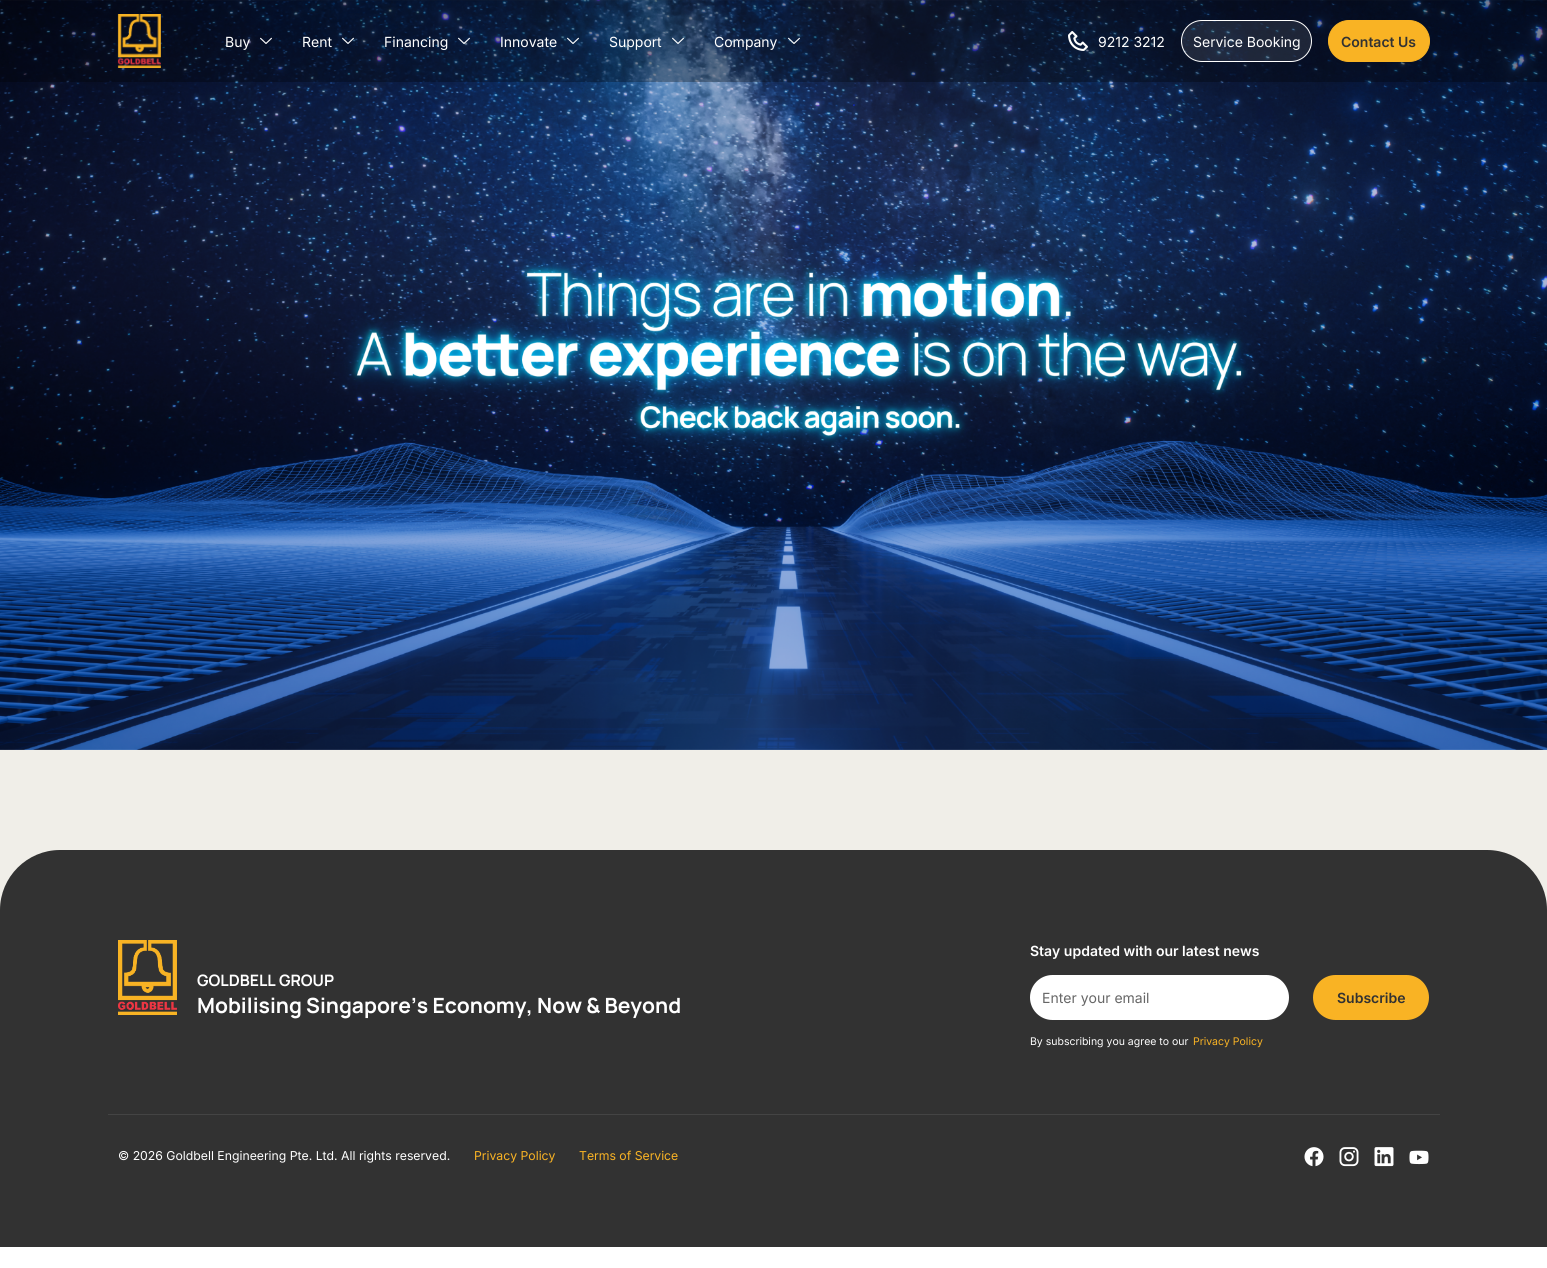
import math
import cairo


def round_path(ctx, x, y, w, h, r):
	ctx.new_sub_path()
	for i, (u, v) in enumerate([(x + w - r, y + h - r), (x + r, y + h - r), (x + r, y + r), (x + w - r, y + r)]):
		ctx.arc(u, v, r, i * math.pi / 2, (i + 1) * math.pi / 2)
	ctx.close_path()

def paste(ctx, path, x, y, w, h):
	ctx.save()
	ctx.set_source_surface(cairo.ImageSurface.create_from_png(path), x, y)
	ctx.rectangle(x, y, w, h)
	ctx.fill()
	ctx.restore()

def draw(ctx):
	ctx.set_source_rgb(1, 1, 1)
	ctx.paint()
	paste(ctx, 'media/1.png', 0, 0, 1547, 750)
	ctx.set_source_rgb(0.941, 0.933, 0.91)
	ctx.rectangle(0, 750, 1547, 160)
	ctx.fill()
	ctx.set_source_rgba(0, 0, 0, 0.3)
	ctx.rectangle(0, 0, 1547, 82)
	ctx.fill()
	paste(ctx, 'media/2.png', 117, 14, 44, 54)
	ctx.select_font_face('Inter')
	ctx.set_font_size(14)
	ctx.set_source_rgb(1, 1, 1)
	ctx.move_to(225, 47)
	ctx.show_text('Buy')
	paste(ctx, 'media/3.png', 260, 37, 12, 7)
	ctx.move_to(302, 47)
	ctx.show_text('Rent')
	paste(ctx, 'media/4.png', 342, 37, 12, 7)
	ctx.move_to(384, 47)
	ctx.show_text('Financing')
	paste(ctx, 'media/5.png', 458, 37, 12, 7)
	ctx.move_to(500, 47)
	ctx.show_text('Innovate')
	paste(ctx, 'media/6.png', 567, 37, 12, 7)
	ctx.move_to(609, 47)
	ctx.show_text('Support')
	paste(ctx, 'media/7.png', 672, 37, 12, 7)
	ctx.move_to(714, 47)
	ctx.show_text('Company')
	paste(ctx, 'media/8.png', 788, 37, 12, 7)
	paste(ctx, 'media/9.png', 1068, 31, 20, 20)
	ctx.move_to(1098, 47)
	ctx.show_text('9212 3212')
	ctx.set_source_rgba(1, 1, 1, 0.1)
	round_path(ctx, 1181.5, 20.5, 130, 41, 20.5)
	ctx.fill_preserve()
	ctx.set_source_rgb(1, 1, 1)
	ctx.set_line_width(1)
	ctx.stroke()
	ctx.move_to(1193, 47)
	ctx.show_text('Service Booking')
	ctx.set_source_rgb(0.973, 0.702, 0.141)
	round_path(ctx, 1328.5, 20.5, 101, 41, 20.5)
	ctx.fill_preserve()
	ctx.stroke()
	ctx.select_font_face('Inter SemiBold')
	ctx.set_source_rgb(0.196, 0.196, 0.196)
	ctx.move_to(1341, 47)
	ctx.show_text('Contact Us')
	ctx.new_path()
	ctx.move_to(60, 850)
	ctx.line_to(1487, 850)
	ctx.curve_to(1520, 850, 1547, 877, 1547, 910)
	ctx.line_to(1547, 1247)
	ctx.line_to(0, 1247)
	ctx.line_to(0, 910)
	ctx.curve_to(0, 877, 27, 850, 60, 850)
	ctx.close_path()
	ctx.fill()
	paste(ctx, 'media/10.png', 118, 940, 59, 75)
	ctx.select_font_face('Manrope', cairo.FONT_SLANT_NORMAL, cairo.FONT_WEIGHT_BOLD)
	ctx.set_font_size(15.75)
	ctx.set_source_rgb(1, 1, 1)
	ctx.move_to(197, 986)
	ctx.show_text('GOLDBELL GROUP')
	ctx.set_font_size(21)
	ctx.move_to(197, 1013)
	ctx.show_text('Mobilising Singapore’s Economy, Now & Beyond')
	ctx.select_font_face('Inter SemiBold')
	ctx.set_font_size(14)
	ctx.move_to(1030, 956)
	ctx.show_text('Stay updated with our latest news')
	round_path(ctx, 1030, 975, 259, 45, 22.5)
	ctx.fill()
	ctx.select_font_face('Inter')
	ctx.set_source_rgb(0.4, 0.4, 0.4)
	ctx.move_to(1042, 1003)
	ctx.show_text('Enter your email')
	ctx.set_source_rgb(0.973, 0.702, 0.141)
	round_path(ctx, 1313, 975, 116, 45, 22.5)
	ctx.fill()
	ctx.select_font_face('Inter SemiBold')
	ctx.set_source_rgb(0.196, 0.196, 0.196)
	ctx.move_to(1337, 1003)
	ctx.show_text('Subscribe')
	ctx.select_font_face('Inter')
	ctx.set_font_size(10.5)
	ctx.set_source_rgb(1, 1, 1)
	ctx.move_to(1030, 1045)
	ctx.show_text('By subscribing you agree to our')
	ctx.set_source_rgb(0.973, 0.702, 0.141)
	ctx.move_to(1193, 1045)
	ctx.show_text('Privacy Policy')
	ctx.set_source_rgb(0.267, 0.267, 0.267)
	ctx.rectangle(108, 1114, 1332, 1)
	ctx.fill()
	ctx.set_font_size(12.25)
	ctx.set_source_rgb(1, 1, 1)
	ctx.move_to(118, 1160)
	ctx.show_text('© 2026 Goldbell Engineering Pte. Ltd. All rights reserved.')
	ctx.set_source_rgb(0.973, 0.702, 0.141)
	ctx.move_to(474, 1160)
	ctx.show_text('Privacy Policy')
	ctx.move_to(579, 1160)
	ctx.show_text('Terms of Service')
	paste(ctx, 'media/11.png', 1304, 1147, 20, 20)
	paste(ctx, 'media/12.png', 1339, 1147, 20, 20)
	paste(ctx, 'media/13.png', 1374, 1147, 20, 20)
	paste(ctx, 'media/14.png', 1409, 1150, 20, 15)


surface = cairo.ImageSurface(cairo.FORMAT_RGB24, 1547, 1268)
ctx = cairo.Context(surface)
options = cairo.FontOptions()
options.set_hint_metrics(cairo.HINT_METRICS_OFF)
options.set_hint_style(cairo.HINT_STYLE_NONE)
ctx.set_font_options(options)
ctx.set_miter_limit(4)
draw(ctx)
surface.write_to_png('image.png')
